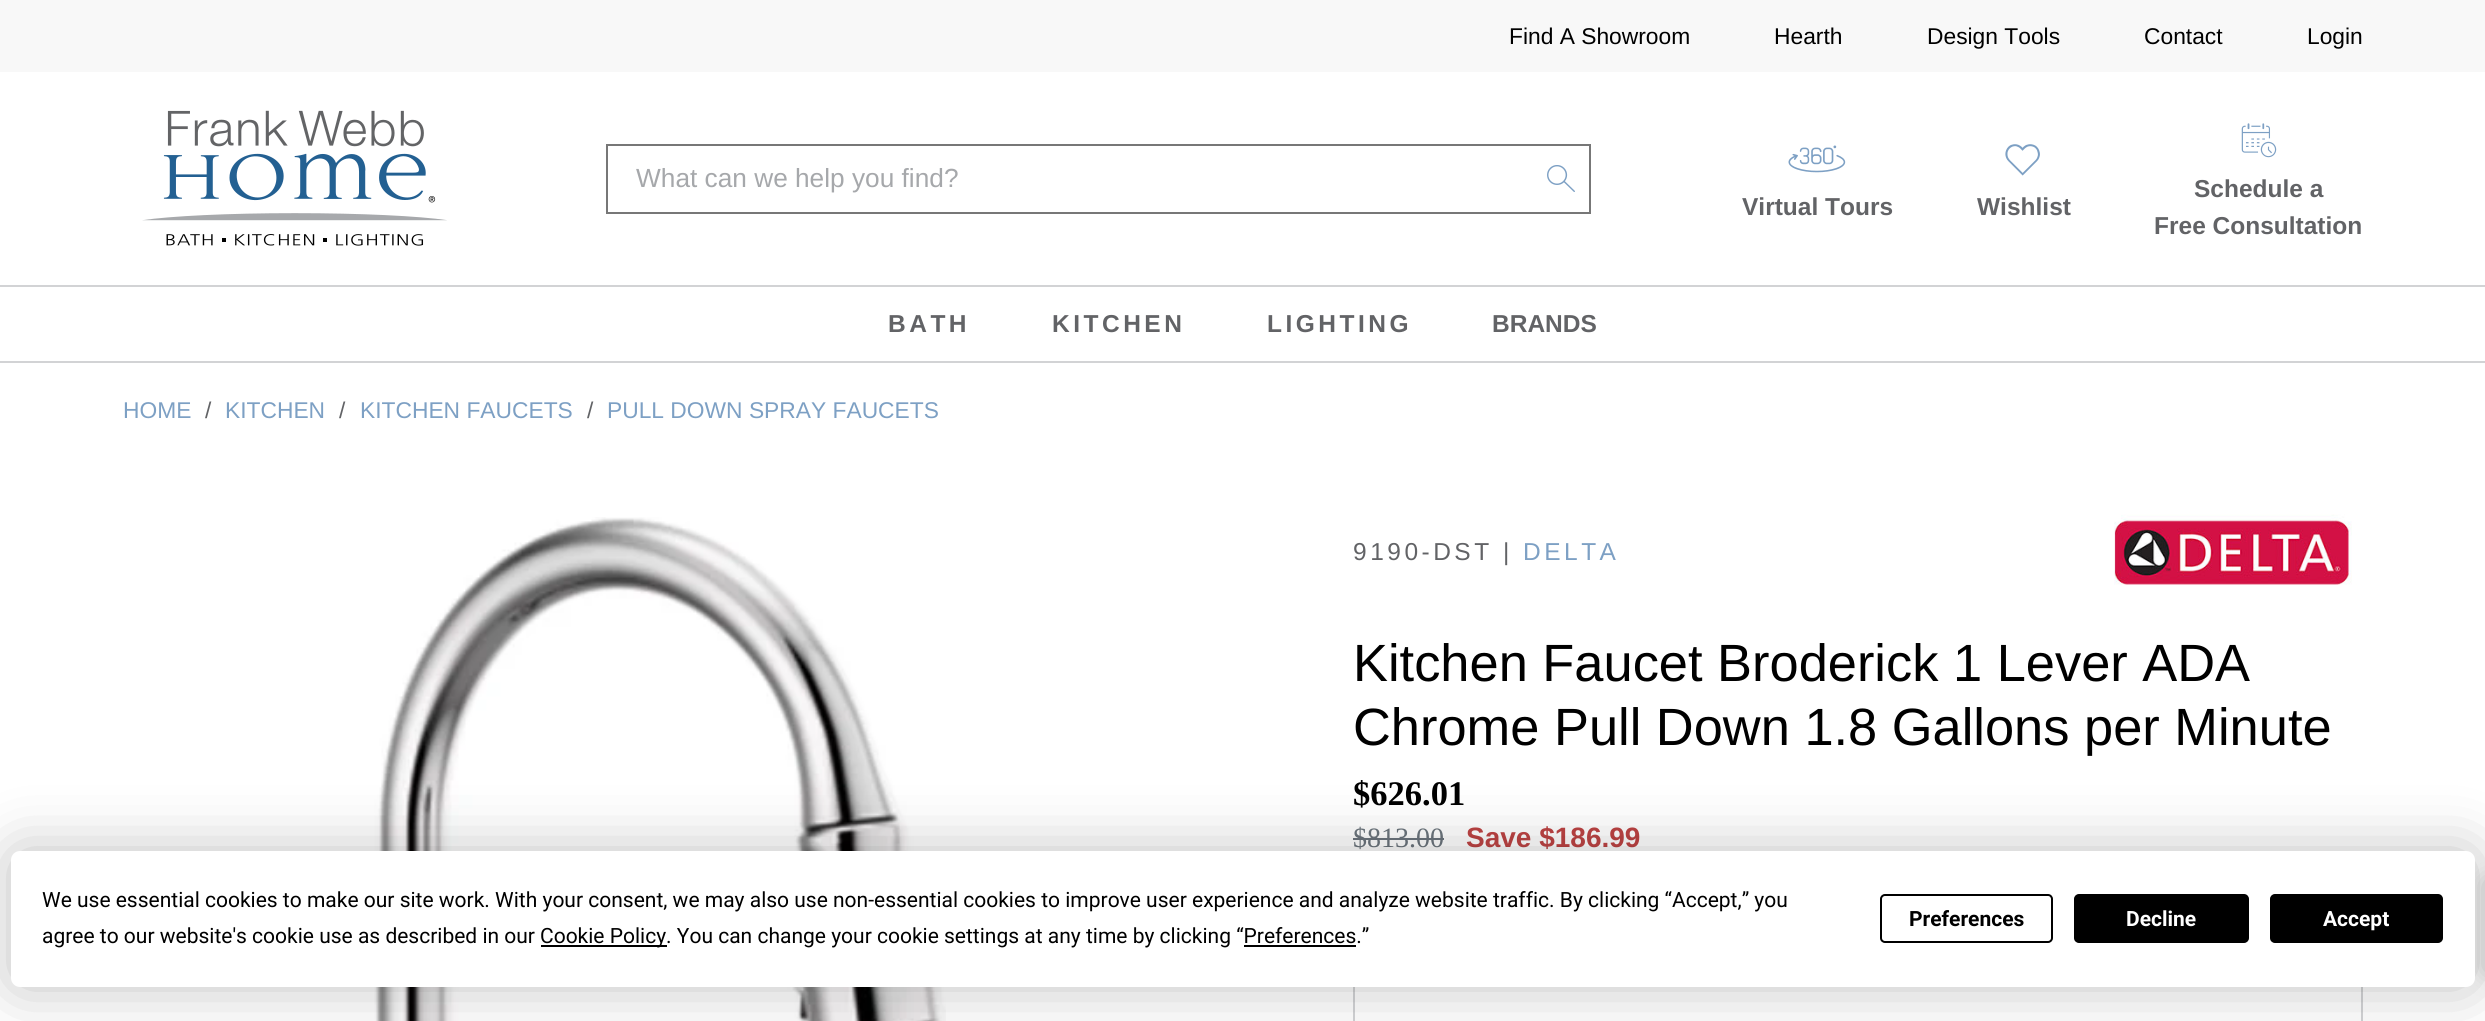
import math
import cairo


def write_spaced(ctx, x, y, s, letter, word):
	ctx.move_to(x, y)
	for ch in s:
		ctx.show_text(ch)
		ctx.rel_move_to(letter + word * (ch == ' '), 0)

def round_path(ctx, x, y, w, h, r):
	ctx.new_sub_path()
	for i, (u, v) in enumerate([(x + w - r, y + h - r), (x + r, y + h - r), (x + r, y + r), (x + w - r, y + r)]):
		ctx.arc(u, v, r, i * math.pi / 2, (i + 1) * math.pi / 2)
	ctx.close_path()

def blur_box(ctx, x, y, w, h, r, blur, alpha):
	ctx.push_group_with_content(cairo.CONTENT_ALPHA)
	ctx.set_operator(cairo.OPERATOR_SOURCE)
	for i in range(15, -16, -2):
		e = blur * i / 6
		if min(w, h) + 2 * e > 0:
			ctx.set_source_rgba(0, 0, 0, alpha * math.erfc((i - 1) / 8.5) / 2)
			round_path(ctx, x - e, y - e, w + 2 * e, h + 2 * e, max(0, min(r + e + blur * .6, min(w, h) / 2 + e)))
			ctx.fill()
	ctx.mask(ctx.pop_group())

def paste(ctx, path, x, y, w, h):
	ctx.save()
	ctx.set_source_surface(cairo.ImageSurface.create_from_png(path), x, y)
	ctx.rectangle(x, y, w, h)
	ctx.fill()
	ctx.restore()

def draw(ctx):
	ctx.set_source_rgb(1, 1, 1)
	ctx.paint()
	ctx.set_source_rgb(0.969, 0.969, 0.969)
	ctx.rectangle(0, 0, 2485, 72)
	ctx.fill()
	ctx.select_font_face('Liberation Sans')
	ctx.set_font_size(22.8)
	ctx.set_source_rgb(0, 0, 0)
	for x, y, s in [
		(1509, 44, 'Find A Showroom'),
		(1774, 44, 'Hearth'),
		(1927, 44, 'Design Tools'),
		(2144, 44, 'Contact'),
		(2307, 44, 'Login'),
	]:
		ctx.move_to(x, y)
		ctx.show_text(s)
	ctx.set_source_rgb(0.824, 0.827, 0.835)
	ctx.rectangle(0, 285, 2485, 2)
	ctx.fill()
	paste(ctx, 'media/1.png', 142, 110, 305, 136)
	ctx.set_source_rgb(0.467, 0.467, 0.467)
	ctx.rectangle(606, 144, 985, 2)
	ctx.rectangle(1589, 144, 2, 70)
	ctx.rectangle(606, 212, 985, 2)
	ctx.fill()
	paste(ctx, 'media/2.png', 1547, 165, 28, 27)
	ctx.rectangle(606, 144, 2, 70)
	ctx.fill()
	ctx.set_font_size(26.25)
	ctx.set_source_rgb(0.651, 0.659, 0.671)
	ctx.move_to(636, 187)
	ctx.show_text('What can we help you find?')
	paste(ctx, 'media/3.png', 1788, 145, 58, 28)
	ctx.select_font_face('Liberation Sans', cairo.FONT_SLANT_NORMAL, cairo.FONT_WEIGHT_BOLD)
	ctx.set_font_size(24.5)
	ctx.set_source_rgb(0.384, 0.388, 0.4)
	ctx.move_to(1742, 215)
	ctx.show_text('Virtual Tours')
	paste(ctx, 'media/4.png', 2005, 144, 35, 32)
	ctx.move_to(1977, 215)
	ctx.show_text('Wishlist')
	paste(ctx, 'media/5.png', 2241, 123, 36, 35)
	ctx.move_to(2194, 197)
	ctx.show_text('Schedule a')
	ctx.move_to(2154, 234)
	ctx.show_text('Free Consultation')
	ctx.set_source_rgb(0.824, 0.827, 0.835)
	ctx.rectangle(0, 361, 2485, 2)
	ctx.fill()
	ctx.set_source_rgb(0.384, 0.388, 0.4)
	for x, y, s in [
		(888, 332, 'BATH'),
		(1052, 332, 'KITCHEN'),
		(1267, 332, 'LIGHTING'),
	]:
		write_spaced(ctx, x, y, s, 3.5, 0)
	ctx.move_to(1492, 332)
	ctx.show_text('BRANDS')
	ctx.select_font_face('Liberation Sans')
	ctx.set_font_size(22.8)
	ctx.set_source_rgb(0.49, 0.627, 0.769)
	ctx.move_to(123, 418)
	ctx.show_text('HOME')
	ctx.set_source_rgb(0.384, 0.388, 0.4)
	ctx.move_to(205, 418)
	ctx.show_text('/')
	ctx.set_source_rgb(0.49, 0.627, 0.769)
	ctx.move_to(225, 418)
	ctx.show_text('KITCHEN')
	ctx.set_source_rgb(0.384, 0.388, 0.4)
	ctx.move_to(339, 418)
	ctx.show_text('/')
	ctx.set_source_rgb(0.49, 0.627, 0.769)
	ctx.move_to(360, 418)
	ctx.show_text('KITCHEN FAUCETS')
	ctx.set_source_rgb(0.384, 0.388, 0.4)
	ctx.move_to(587, 418)
	ctx.show_text('/')
	ctx.set_source_rgb(0.49, 0.627, 0.769)
	ctx.move_to(607, 418)
	ctx.show_text('PULL DOWN SPRAY FAUCETS')
	paste(ctx, 'media/6.png', 369, 517, 577, 504)
	ctx.set_font_size(24.5)
	ctx.set_source_rgb(0.384, 0.388, 0.4)
	write_spaced(ctx, 1353, 560, '9190-DST |', 3.5, 0)
	ctx.set_source_rgb(0.49, 0.627, 0.769)
	write_spaced(ctx, 1523, 560, 'DELTA', 3.5, 0)
	paste(ctx, 'media/7.png', 2114, 514, 238, 71)
	ctx.set_font_size(52.4)
	ctx.set_source_rgb(0, 0, 0)
	ctx.move_to(1353, 681)
	ctx.show_text('Kitchen Faucet Broderick 1 Lever ADA')
	ctx.move_to(1353, 745)
	ctx.show_text('Chrome Pull Down 1.8 Gallons per Minute')
	ctx.select_font_face('Liberation Serif', cairo.FONT_SLANT_NORMAL, cairo.FONT_WEIGHT_BOLD)
	ctx.set_font_size(34.5)
	ctx.move_to(1353, 805)
	ctx.show_text('$626.01')
	ctx.select_font_face('Liberation Serif')
	ctx.set_font_size(28)
	ctx.set_source_rgb(0.424, 0.459, 0.49)
	ctx.move_to(1353, 847)
	ctx.show_text('$813.00')
	ctx.rectangle(1353, 838, 91, 2)
	ctx.fill()
	ctx.select_font_face('Liberation Sans', cairo.FONT_SLANT_NORMAL, cairo.FONT_WEIGHT_BOLD)
	ctx.set_source_rgb(0.741, 0.263, 0.263)
	ctx.move_to(1466, 847)
	ctx.show_text('Save $186.99')
	ctx.rectangle(1354, 981, 1008, 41)
	ctx.set_source_rgb(0.824, 0.827, 0.835)
	ctx.stroke()
	ctx.set_source_rgb(0, 0, 0)
	blur_box(ctx, 11, 851, 2464, 136, 9, 30.5, 0.25)
	ctx.set_source_rgb(0.459, 0.459, 0.459)
	blur_box(ctx, 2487, 882, 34, 88, 0, 12, 0.5)
	ctx.set_source_rgb(1, 1, 1)
	round_path(ctx, 11, 851, 2464, 136, 9)
	ctx.fill()
	ctx.select_font_face('Roboto')
	ctx.set_font_size(21)
	ctx.set_source_rgb(0, 0, 0)
	ctx.move_to(42, 907)
	ctx.show_text('We use essential cookies to make our site work. With your consent, we may also use non-essential cookies to improve user experience and analyze website traffic. By clicking “Accept,” you')
	ctx.move_to(42, 943)
	ctx.show_text('agree to our website\'s cookie use as described in our')
	ctx.rectangle(541, 945, 126, 2)
	ctx.fill()
	ctx.move_to(540, 943)
	ctx.show_text('Cookie Policy. You can change your cookie settings at any time by clicking “Preferences.”')
	ctx.rectangle(1244, 945, 112, 2)
	ctx.fill()
	round_path(ctx, 1881, 895, 171, 47, 4)
	ctx.stroke()
	ctx.select_font_face('Roboto', cairo.FONT_SLANT_NORMAL, cairo.FONT_WEIGHT_BOLD)
	ctx.move_to(1909, 926)
	ctx.show_text('Preferences')
	round_path(ctx, 2075, 895, 173, 47, 4)
	ctx.fill_preserve()
	ctx.stroke()
	ctx.set_source_rgb(1, 1, 1)
	ctx.move_to(2126, 926)
	ctx.show_text('Decline')
	ctx.set_source_rgb(0, 0, 0)
	round_path(ctx, 2271, 895, 171, 47, 4)
	ctx.fill_preserve()
	ctx.stroke()
	ctx.set_source_rgb(1, 1, 1)
	ctx.move_to(2323, 926)
	ctx.show_text('Accept')


surface = cairo.ImageSurface(cairo.FORMAT_RGB24, 2485, 1021)
ctx = cairo.Context(surface)
options = cairo.FontOptions()
options.set_hint_metrics(cairo.HINT_METRICS_OFF)
options.set_hint_style(cairo.HINT_STYLE_NONE)
ctx.set_font_options(options)
ctx.set_miter_limit(4)
draw(ctx)
surface.write_to_png('image.png')
